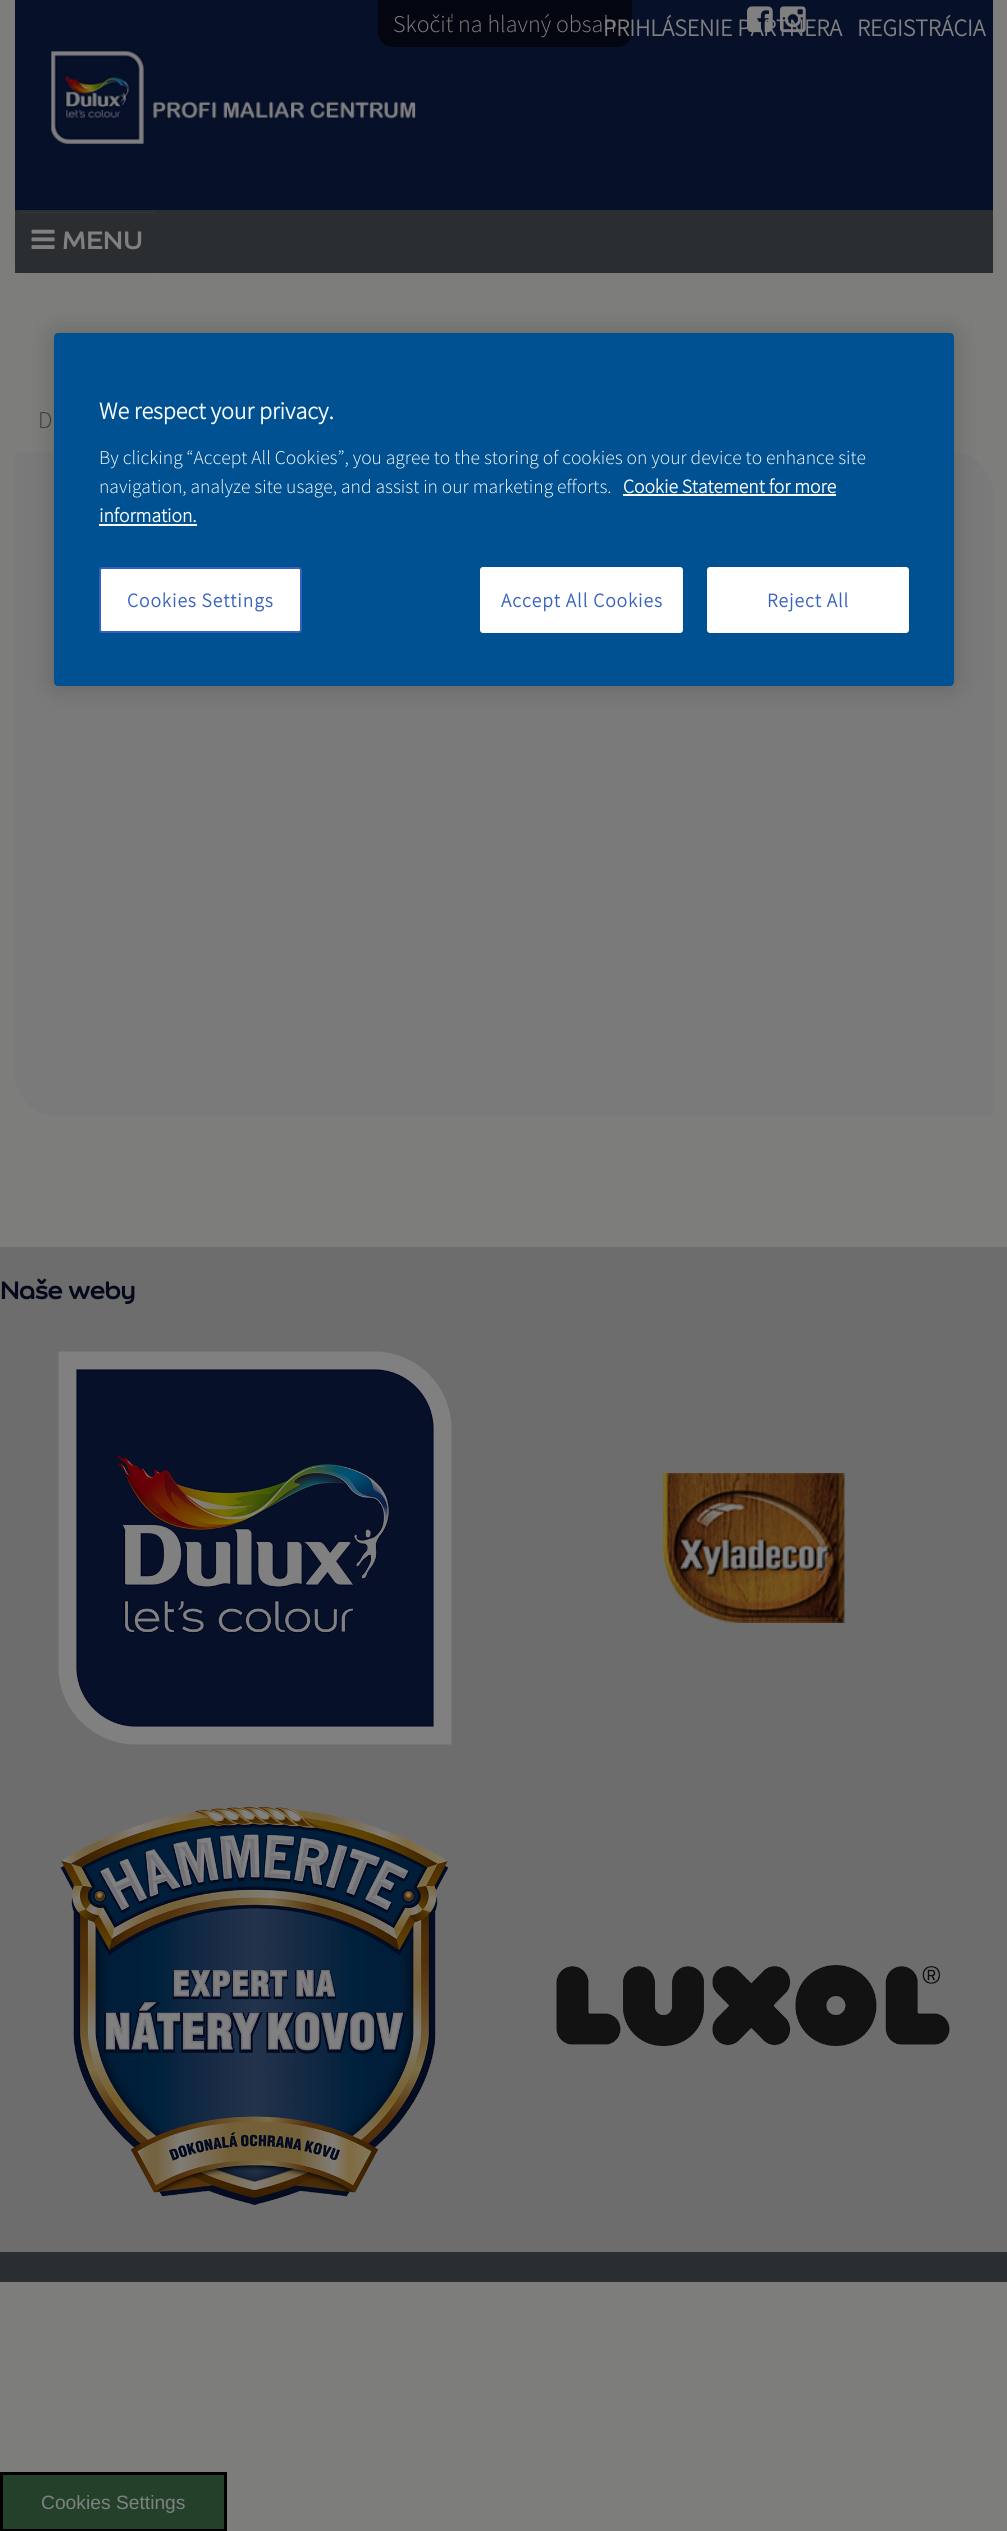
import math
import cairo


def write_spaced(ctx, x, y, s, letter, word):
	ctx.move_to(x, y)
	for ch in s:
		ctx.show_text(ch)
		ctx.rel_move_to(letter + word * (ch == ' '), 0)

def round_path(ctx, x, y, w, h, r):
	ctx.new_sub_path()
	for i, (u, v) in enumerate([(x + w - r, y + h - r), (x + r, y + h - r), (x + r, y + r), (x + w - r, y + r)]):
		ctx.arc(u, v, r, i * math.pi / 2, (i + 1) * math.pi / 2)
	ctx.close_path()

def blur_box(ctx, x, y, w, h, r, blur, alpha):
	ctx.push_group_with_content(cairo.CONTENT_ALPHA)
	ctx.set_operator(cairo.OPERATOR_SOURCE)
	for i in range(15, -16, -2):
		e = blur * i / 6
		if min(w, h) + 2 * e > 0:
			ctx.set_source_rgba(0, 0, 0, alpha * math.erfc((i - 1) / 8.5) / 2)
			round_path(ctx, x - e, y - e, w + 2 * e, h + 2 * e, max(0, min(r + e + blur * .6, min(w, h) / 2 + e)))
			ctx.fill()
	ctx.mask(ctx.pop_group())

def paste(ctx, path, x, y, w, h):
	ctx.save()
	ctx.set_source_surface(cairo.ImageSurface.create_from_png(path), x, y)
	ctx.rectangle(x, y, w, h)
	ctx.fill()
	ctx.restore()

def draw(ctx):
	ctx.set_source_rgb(0.49, 0.49, 0.486)
	ctx.paint()
	ctx.set_source_rgb(0.024, 0.063, 0.161)
	ctx.rectangle(15, 0, 978, 210)
	ctx.fill()
	ctx.set_source_rgb(0.012, 0.024, 0.063)
	ctx.new_path()
	ctx.move_to(378, 0)
	ctx.line_to(632, 0)
	ctx.line_to(632, 32)
	ctx.curve_to(632, 40.5, 625.5, 47, 617, 47)
	ctx.line_to(393, 47)
	ctx.curve_to(384.5, 47, 378, 40.5, 378, 32)
	ctx.close_path()
	ctx.fill()
	ctx.select_font_face('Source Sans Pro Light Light')
	ctx.set_font_size(24)
	ctx.set_source_rgb(0.502, 0.502, 0.502)
	ctx.move_to(393, 32)
	ctx.show_text('Skočiť na hlavný obsah')
	paste(ctx, 'media/1.png', 747, 6, 26, 27)
	paste(ctx, 'media/2.png', 780, 6, 26, 27)
	ctx.select_font_face('Source Sans Pro Light', cairo.FONT_SLANT_NORMAL, cairo.FONT_WEIGHT_BOLD)
	ctx.move_to(603, 36)
	ctx.show_text('PRIHLÁSENIE PARTNERA')
	ctx.move_to(857, 36)
	ctx.show_text('REGISTRÁCIA')
	paste(ctx, 'media/3.png', 51, 51, 365, 93)
	ctx.set_source_rgb(0.169, 0.18, 0.188)
	ctx.rectangle(15, 210, 978, 63)
	ctx.fill()
	ctx.set_source_rgba(0.502, 0.502, 0.502, 0.07)
	ctx.new_path()
	ctx.move_to(15, 267)
	ctx.line_to(15, 269)
	ctx.curve_to(15, 272, 18, 275, 21, 275)
	ctx.line_to(153, 275)
	ctx.curve_to(156, 275, 159, 272, 159, 269)
	ctx.line_to(159, 267)
	ctx.curve_to(159, 270, 156, 273, 153, 273)
	ctx.line_to(21, 273)
	ctx.curve_to(18, 273, 15, 270, 15, 267)
	ctx.close_path()
	ctx.fill()
	ctx.set_source_rgb(0.204, 0.212, 0.22)
	ctx.new_path()
	ctx.move_to(21, 213)
	ctx.line_to(153, 213)
	ctx.curve_to(155, 213, 158, 215, 158, 218)
	ctx.line_to(158, 217)
	ctx.curve_to(158, 214, 156, 212, 153, 212)
	ctx.line_to(22, 212)
	ctx.curve_to(20, 212, 19, 213, 18, 214)
	ctx.close_path()
	ctx.fill()
	paste(ctx, 'media/4.png', 31, 229, 24, 20)
	ctx.select_font_face('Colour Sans', cairo.FONT_SLANT_NORMAL, cairo.FONT_WEIGHT_BOLD)
	ctx.set_font_size(27)
	ctx.set_source_rgb(0.502, 0.502, 0.502)
	ctx.move_to(62, 249)
	ctx.show_text('MENU')
	ctx.select_font_face('Source Sans Pro Light Light')
	ctx.set_font_size(24)
	ctx.set_source_rgb(0.227, 0.231, 0.231)
	ctx.move_to(38, 428)
	ctx.show_text('D')
	ctx.set_source_rgb(0.478, 0.478, 0.478)
	ctx.new_path()
	ctx.move_to(15, 452)
	ctx.line_to(951, 452)
	ctx.curve_to(974, 452, 993, 471, 993, 494)
	ctx.line_to(993, 1116)
	ctx.line_to(57, 1116)
	ctx.curve_to(34, 1116, 15, 1097, 15, 1074)
	ctx.close_path()
	ctx.fill()
	ctx.set_source_rgb(0.427, 0.427, 0.427)
	ctx.rectangle(0, 1247, 1007, 1005)
	ctx.fill()
	ctx.select_font_face('Colour Sans', cairo.FONT_SLANT_NORMAL, cairo.FONT_WEIGHT_BOLD)
	ctx.set_font_size(27)
	ctx.set_source_rgb(0.012, 0.035, 0.106)
	write_spaced(ctx, 0, 1299, 'Naše weby', -1.25, 0)
	paste(ctx, 'media/5.png', 58, 1351, 394, 394)
	paste(ctx, 'media/6.png', 663, 1473, 182, 150)
	paste(ctx, 'media/7.png', 60, 1806, 389, 399)
	paste(ctx, 'media/8.png', 556, 1965, 394, 81)
	ctx.set_source_rgb(0.169, 0.18, 0.188)
	ctx.rectangle(0, 2252, 1007, 30)
	ctx.fill()
	ctx.set_source_rgb(0.137, 0.255, 0.165)
	ctx.rectangle(1.5, 2473.5, 224, 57)
	ctx.fill_preserve()
	ctx.set_source_rgb(0, 0, 0)
	ctx.set_line_width(3)
	ctx.stroke()
	ctx.select_font_face('Liberation Sans')
	ctx.set_font_size(19.25)
	ctx.set_source_rgb(0.502, 0.502, 0.502)
	ctx.move_to(41, 2509)
	ctx.show_text('Cookies Settings')
	ctx.set_source_rgb(0, 0, 0)
	blur_box(ctx, 54, 333, 900, 353, 4, 13.5, 0.2)
	ctx.set_source_rgb(0, 0.318, 0.573)
	round_path(ctx, 54, 333, 900, 353, 4)
	ctx.fill()
	ctx.select_font_face('Source Sans Pro Light', cairo.FONT_SLANT_NORMAL, cairo.FONT_WEIGHT_BOLD)
	ctx.set_font_size(24)
	ctx.set_source_rgb(1, 1, 1)
	ctx.move_to(99, 419)
	ctx.show_text('We respect your privacy.')
	ctx.select_font_face('Source Sans Pro Light Light')
	ctx.set_font_size(19.5)
	ctx.move_to(99, 464)
	ctx.show_text('By clicking “Accept All Cookies”, you agree to the storing of cookies on your device to enhance site')
	ctx.move_to(99, 493)
	ctx.show_text('navigation, analyze site usage, and assist in our marketing efforts.')
	ctx.select_font_face('Source Sans Pro Light', cairo.FONT_SLANT_NORMAL, cairo.FONT_WEIGHT_BOLD)
	ctx.move_to(623, 493)
	ctx.show_text('Cookie Statement for more')
	ctx.set_source_rgb(0.98, 0.984, 1)
	ctx.rectangle(623, 494, 213, 2)
	ctx.fill()
	ctx.set_source_rgb(1, 1, 1)
	ctx.move_to(99, 522)
	ctx.show_text('information.')
	ctx.set_source_rgb(0.98, 0.984, 1)
	ctx.rectangle(99, 524, 98, 2)
	ctx.fill()
	ctx.set_source_rgb(1, 1, 1)
	round_path(ctx, 100, 568, 201, 64, 2)
	ctx.fill_preserve()
	ctx.set_source_rgb(0.22, 0.376, 0.745)
	ctx.set_line_width(2)
	ctx.stroke()
	write_spaced(ctx, 127, 607, 'Cookies Settings', 1, 0)
	ctx.set_source_rgb(1, 1, 1)
	round_path(ctx, 481, 568, 201, 64, 2)
	ctx.fill_preserve()
	ctx.stroke()
	ctx.set_source_rgb(0.22, 0.376, 0.745)
	write_spaced(ctx, 501, 607, 'Accept All Cookies', 1, 0)
	ctx.set_source_rgb(1, 1, 1)
	round_path(ctx, 708, 568, 200, 64, 2)
	ctx.fill_preserve()
	ctx.stroke()
	ctx.set_source_rgb(0.22, 0.376, 0.745)
	write_spaced(ctx, 767, 607, 'Reject All', 1, 0)


surface = cairo.ImageSurface(cairo.FORMAT_RGB24, 1007, 2531)
ctx = cairo.Context(surface)
options = cairo.FontOptions()
options.set_hint_metrics(cairo.HINT_METRICS_OFF)
options.set_hint_style(cairo.HINT_STYLE_NONE)
ctx.set_font_options(options)
ctx.set_miter_limit(4)
draw(ctx)
surface.write_to_png('image.png')
